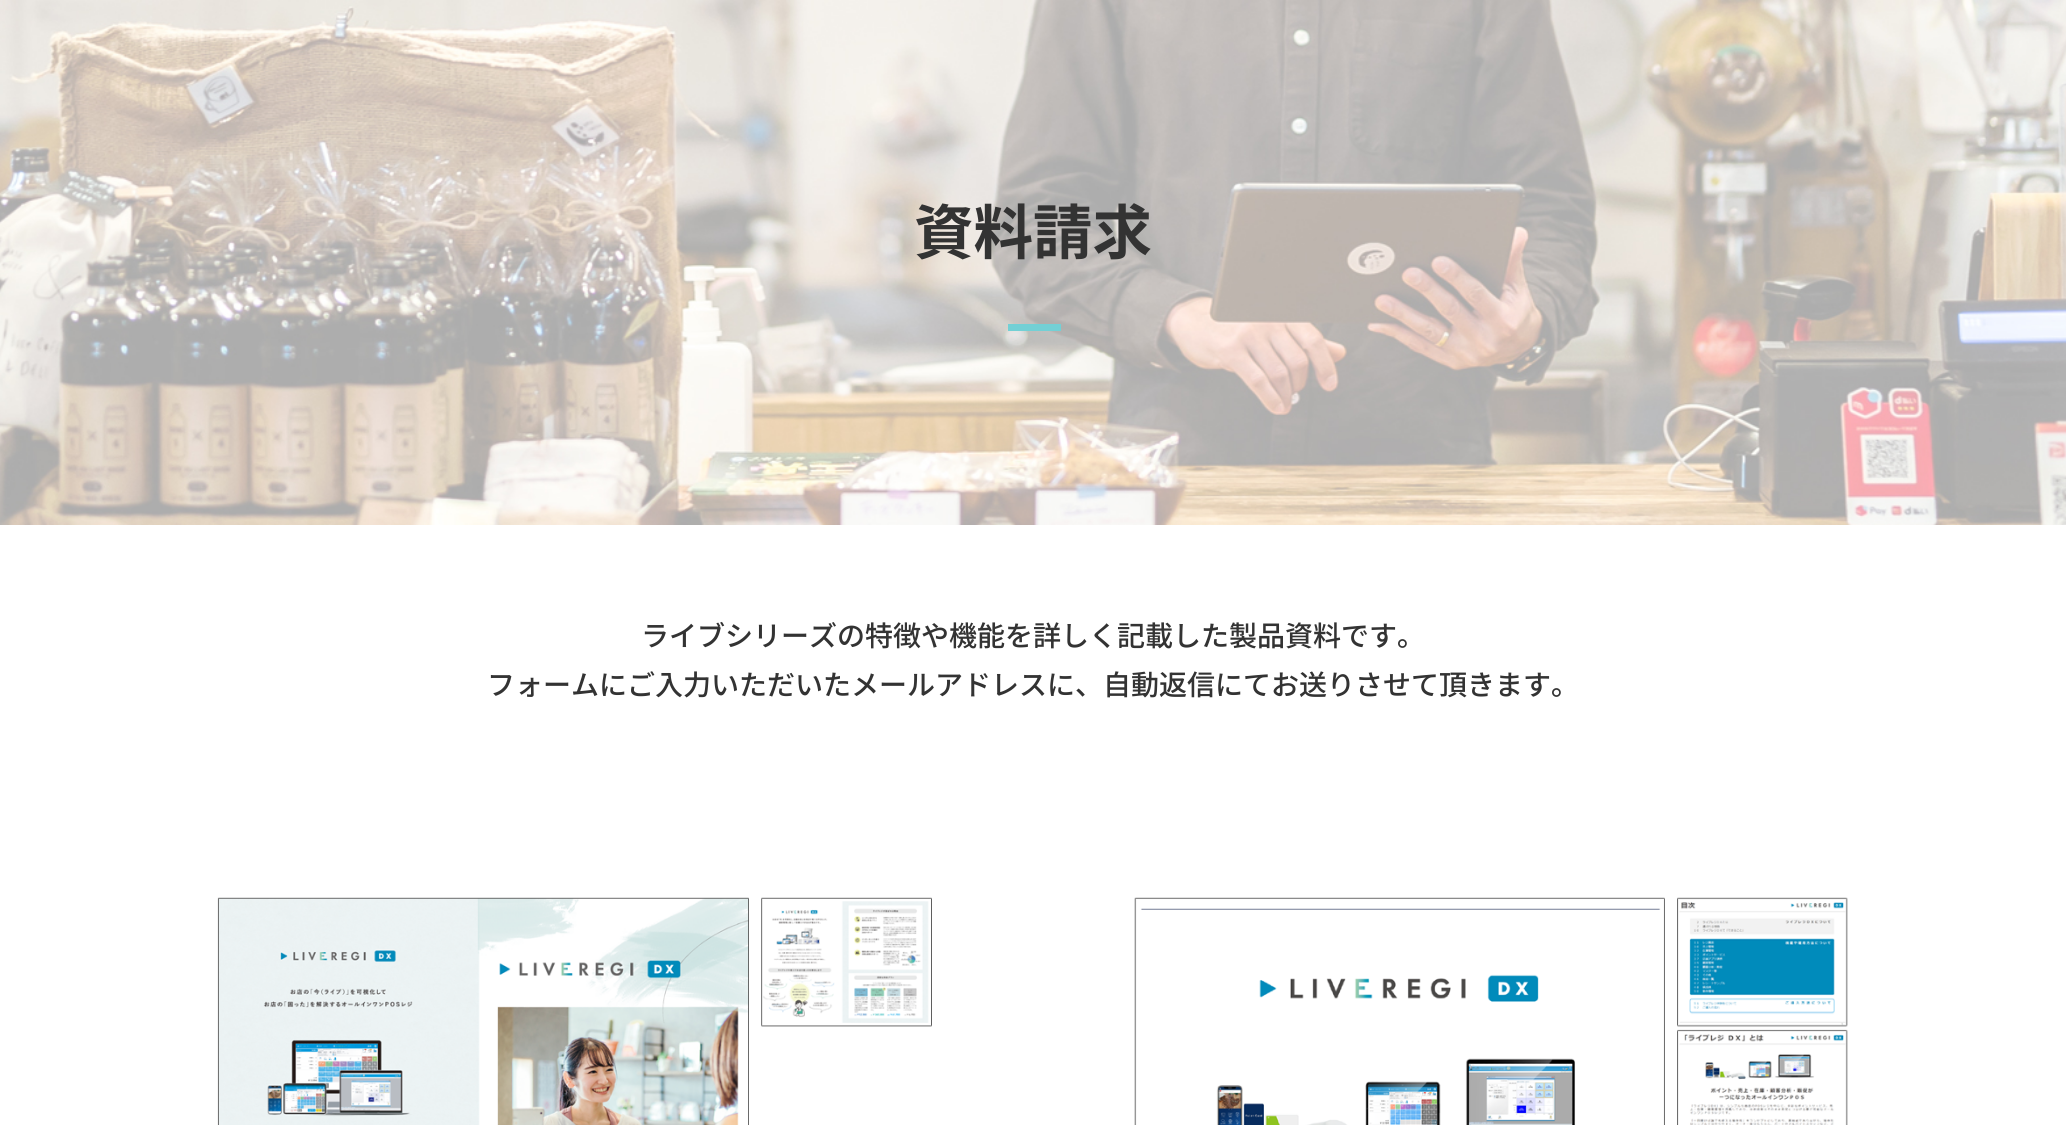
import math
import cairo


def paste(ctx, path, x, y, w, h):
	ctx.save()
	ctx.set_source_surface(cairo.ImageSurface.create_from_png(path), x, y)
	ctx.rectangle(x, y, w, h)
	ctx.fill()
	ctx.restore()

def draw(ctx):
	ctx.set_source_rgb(1, 1, 1)
	ctx.paint()
	paste(ctx, 'media/1.png', 0, 0, 2066, 525)
	ctx.select_font_face('Noto Sans JP', cairo.FONT_SLANT_NORMAL, cairo.FONT_WEIGHT_BOLD)
	ctx.set_font_size(59.5)
	ctx.set_source_rgb(0.2, 0.2, 0.2)
	ctx.move_to(914, 254)
	ctx.show_text('資料請求')
	ctx.set_source_rgb(0.451, 0.816, 0.835)
	ctx.rectangle(1008, 324, 53, 7)
	ctx.fill()
	ctx.select_font_face('Noto Sans JP Medium')
	ctx.set_font_size(28)
	ctx.set_source_rgb(0.2, 0.2, 0.2)
	ctx.move_to(641, 646)
	ctx.show_text('ライブシリーズの特徴や機能を詳しく記載した製品資料です。')
	ctx.move_to(487, 695)
	ctx.show_text('フォームにご入力いただいたメールアドレスに、自動返信にてお送りさせて頂きます。')
	paste(ctx, 'media/2.png', 217, 897, 715, 228)
	paste(ctx, 'media/3.png', 1134, 897, 714, 228)


surface = cairo.ImageSurface(cairo.FORMAT_RGB24, 2066, 1125)
ctx = cairo.Context(surface)
options = cairo.FontOptions()
options.set_hint_metrics(cairo.HINT_METRICS_OFF)
options.set_hint_style(cairo.HINT_STYLE_NONE)
ctx.set_font_options(options)
ctx.set_miter_limit(4)
draw(ctx)
surface.write_to_png('image.png')
